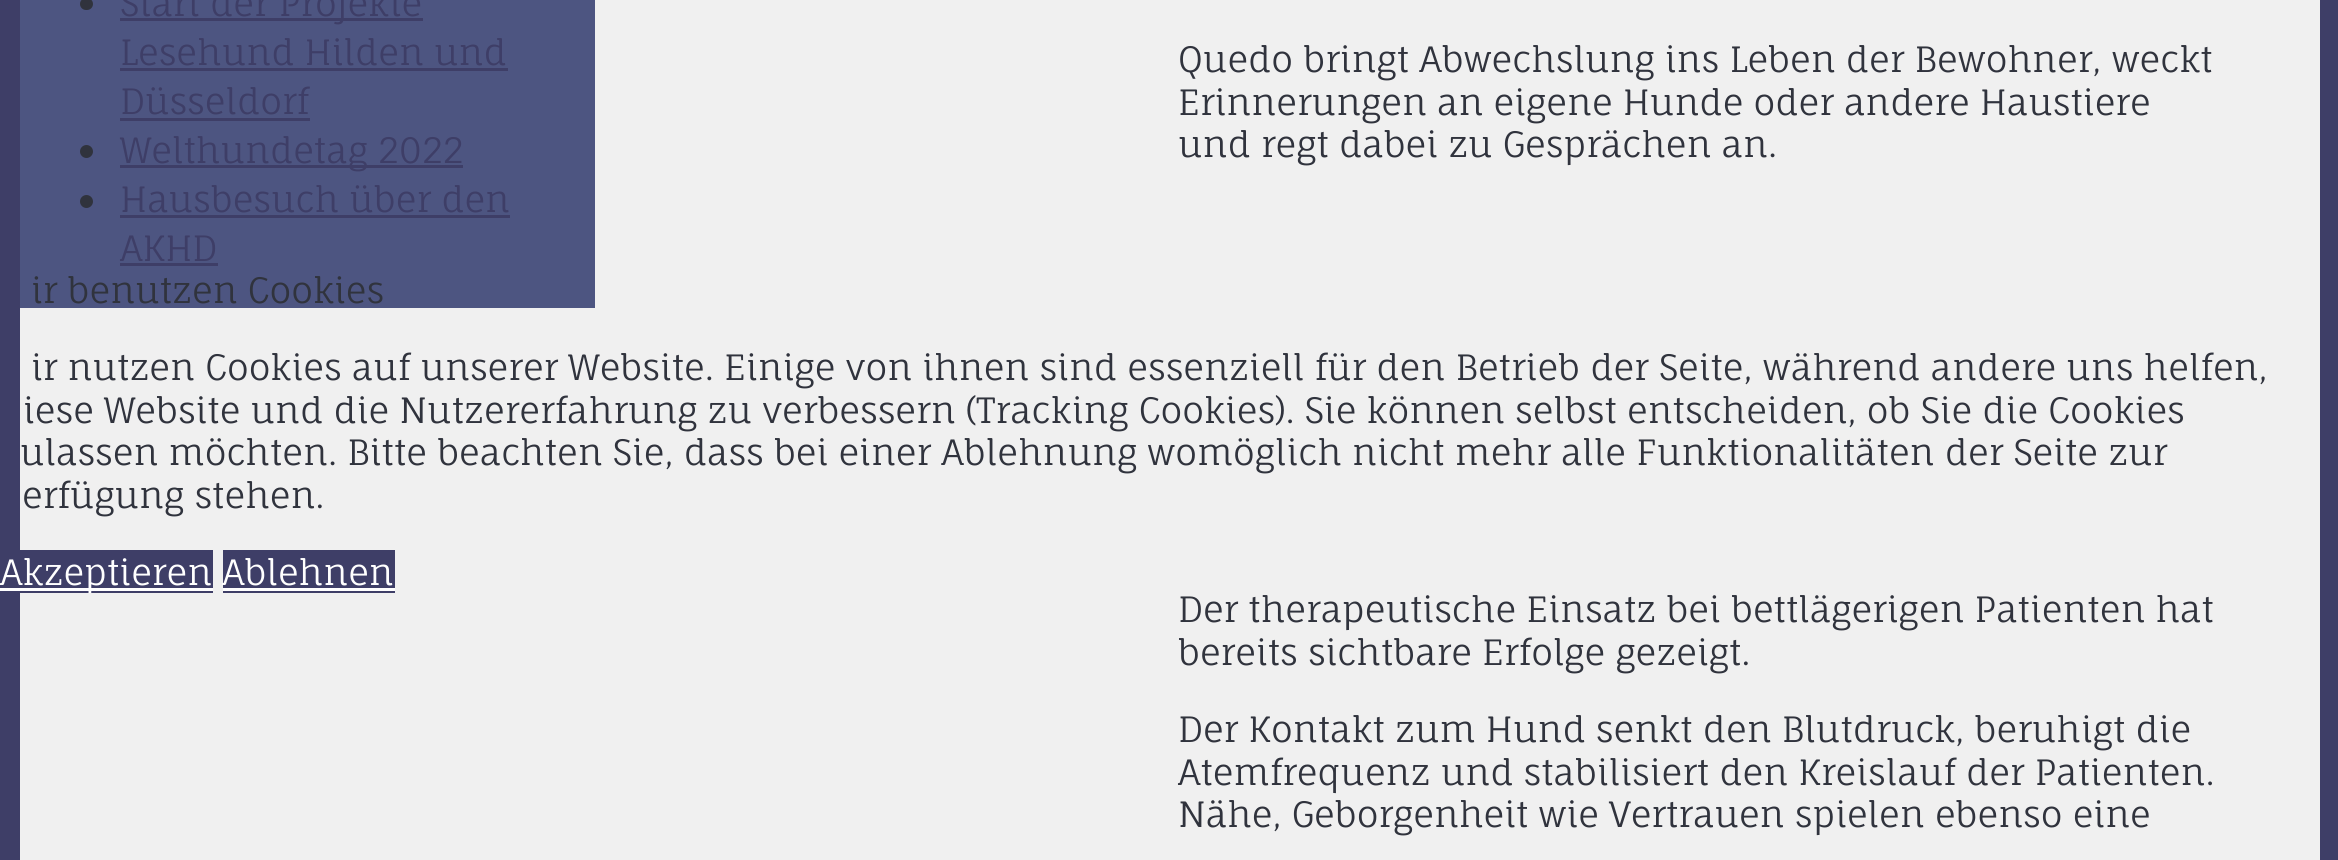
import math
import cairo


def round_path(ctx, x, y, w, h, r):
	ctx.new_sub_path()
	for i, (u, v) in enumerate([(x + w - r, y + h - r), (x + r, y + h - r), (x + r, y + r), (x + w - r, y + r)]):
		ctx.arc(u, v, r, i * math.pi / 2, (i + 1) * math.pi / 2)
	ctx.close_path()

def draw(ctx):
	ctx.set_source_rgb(0.243, 0.243, 0.404)
	ctx.paint()
	ctx.set_source_rgb(0.941, 0.941, 0.941)
	ctx.rectangle(20, 0, 2300, 860)
	ctx.fill()
	ctx.set_source_rgb(0.302, 0.333, 0.506)
	ctx.rectangle(20, 0, 575, 308)
	ctx.fill()
	ctx.set_source_rgb(0.188, 0.2, 0.239)
	round_path(ctx, 80, -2, 13, 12, 6)
	ctx.fill()
	ctx.set_source_rgb(0.243, 0.243, 0.404)
	ctx.rectangle(120, 18, 303, 3)
	ctx.fill()
	ctx.select_font_face('Fauna One')
	ctx.set_font_size(35)
	ctx.move_to(120, 16)
	ctx.show_text('Start der Projekte')
	ctx.move_to(120, 65)
	ctx.show_text('Lesehund Hilden und')
	ctx.rectangle(120, 68, 388, 3)
	ctx.fill()
	ctx.move_to(120, 114)
	ctx.show_text('Düsseldorf')
	ctx.rectangle(120, 118, 190, 3)
	ctx.fill()
	ctx.set_source_rgb(0.188, 0.2, 0.239)
	ctx.arc(86.5, 151.5, 6.5, 0, 2 * math.pi)
	ctx.fill()
	ctx.set_source_rgb(0.243, 0.243, 0.404)
	ctx.rectangle(120, 165, 343, 3)
	ctx.fill()
	ctx.move_to(120, 163)
	ctx.show_text('Welthundetag 2022')
	ctx.set_source_rgb(0.188, 0.2, 0.239)
	ctx.new_path()
	ctx.arc(86.5, 201.5, 6.5, 0, 2 * math.pi)
	ctx.fill()
	ctx.set_source_rgb(0.243, 0.243, 0.404)
	ctx.move_to(120, 212)
	ctx.show_text('Hausbesuch über den')
	ctx.rectangle(120, 215, 390, 3)
	ctx.fill()
	ctx.move_to(120, 261)
	ctx.show_text('AKHD')
	ctx.rectangle(120, 263, 98, 3)
	ctx.fill()
	ctx.set_source_rgb(0.188, 0.2, 0.239)
	for x, y, s in [
		(1178, 72, 'Quedo bringt Abwechslung ins Leben der Bewohner, weckt'),
		(1178, 115, 'Erinnerungen an eigene Hunde oder andere Haustiere'),
		(1178, 157, 'und regt dabei zu Gesprächen an.'),
		(1178, 622, 'Der therapeutische Einsatz bei bettlägerigen Patienten hat'),
		(1178, 665, 'bereits sichtbare Erfolge gezeigt.'),
		(1178, 742, 'Der Kontakt zum Hund senkt den Blutdruck, beruhigt die'),
		(1178, 785, 'Atemfrequenz und stabilisiert den Kreislauf der Patienten.'),
		(1178, 827, 'Nähe, Geborgenheit wie Vertrauen spielen ebenso eine'),
		(31, 303, 'ir benutzen Cookies'),
		(31, 380, 'ir nutzen Cookies auf unserer Website. Einige von ihnen sind essenziell für den Betrieb der Seite, während andere uns helfen,'),
		(23, 423, 'iese Website und die Nutzererfahrung zu verbessern (Tracking Cookies). Sie können selbst entscheiden, ob Sie die Cookies'),
		(20, 465, 'ulassen möchten. Bitte beachten Sie, dass bei einer Ablehnung womöglich nicht mehr alle Funktionalitäten der Seite zur'),
		(22, 508, 'erfügung stehen.'),
	]:
		ctx.move_to(x, y)
		ctx.show_text(s)
	ctx.set_source_rgb(0.243, 0.243, 0.404)
	ctx.rectangle(20, 550, 193, 43)
	ctx.fill()
	ctx.set_source_rgb(1, 1, 1)
	ctx.rectangle(0, 588, 213, 3)
	ctx.fill()
	ctx.move_to(0, 585)
	ctx.show_text('Akzeptieren')
	ctx.set_source_rgb(0.243, 0.243, 0.404)
	ctx.rectangle(223, 550, 172, 43)
	ctx.fill()
	ctx.set_source_rgb(1, 1, 1)
	ctx.move_to(222, 585)
	ctx.show_text('Ablehnen')
	ctx.rectangle(223, 588, 172, 3)
	ctx.fill()


surface = cairo.ImageSurface(cairo.FORMAT_RGB24, 2338, 860)
ctx = cairo.Context(surface)
options = cairo.FontOptions()
options.set_hint_metrics(cairo.HINT_METRICS_OFF)
options.set_hint_style(cairo.HINT_STYLE_NONE)
ctx.set_font_options(options)
ctx.set_miter_limit(4)
draw(ctx)
surface.write_to_png('image.png')
